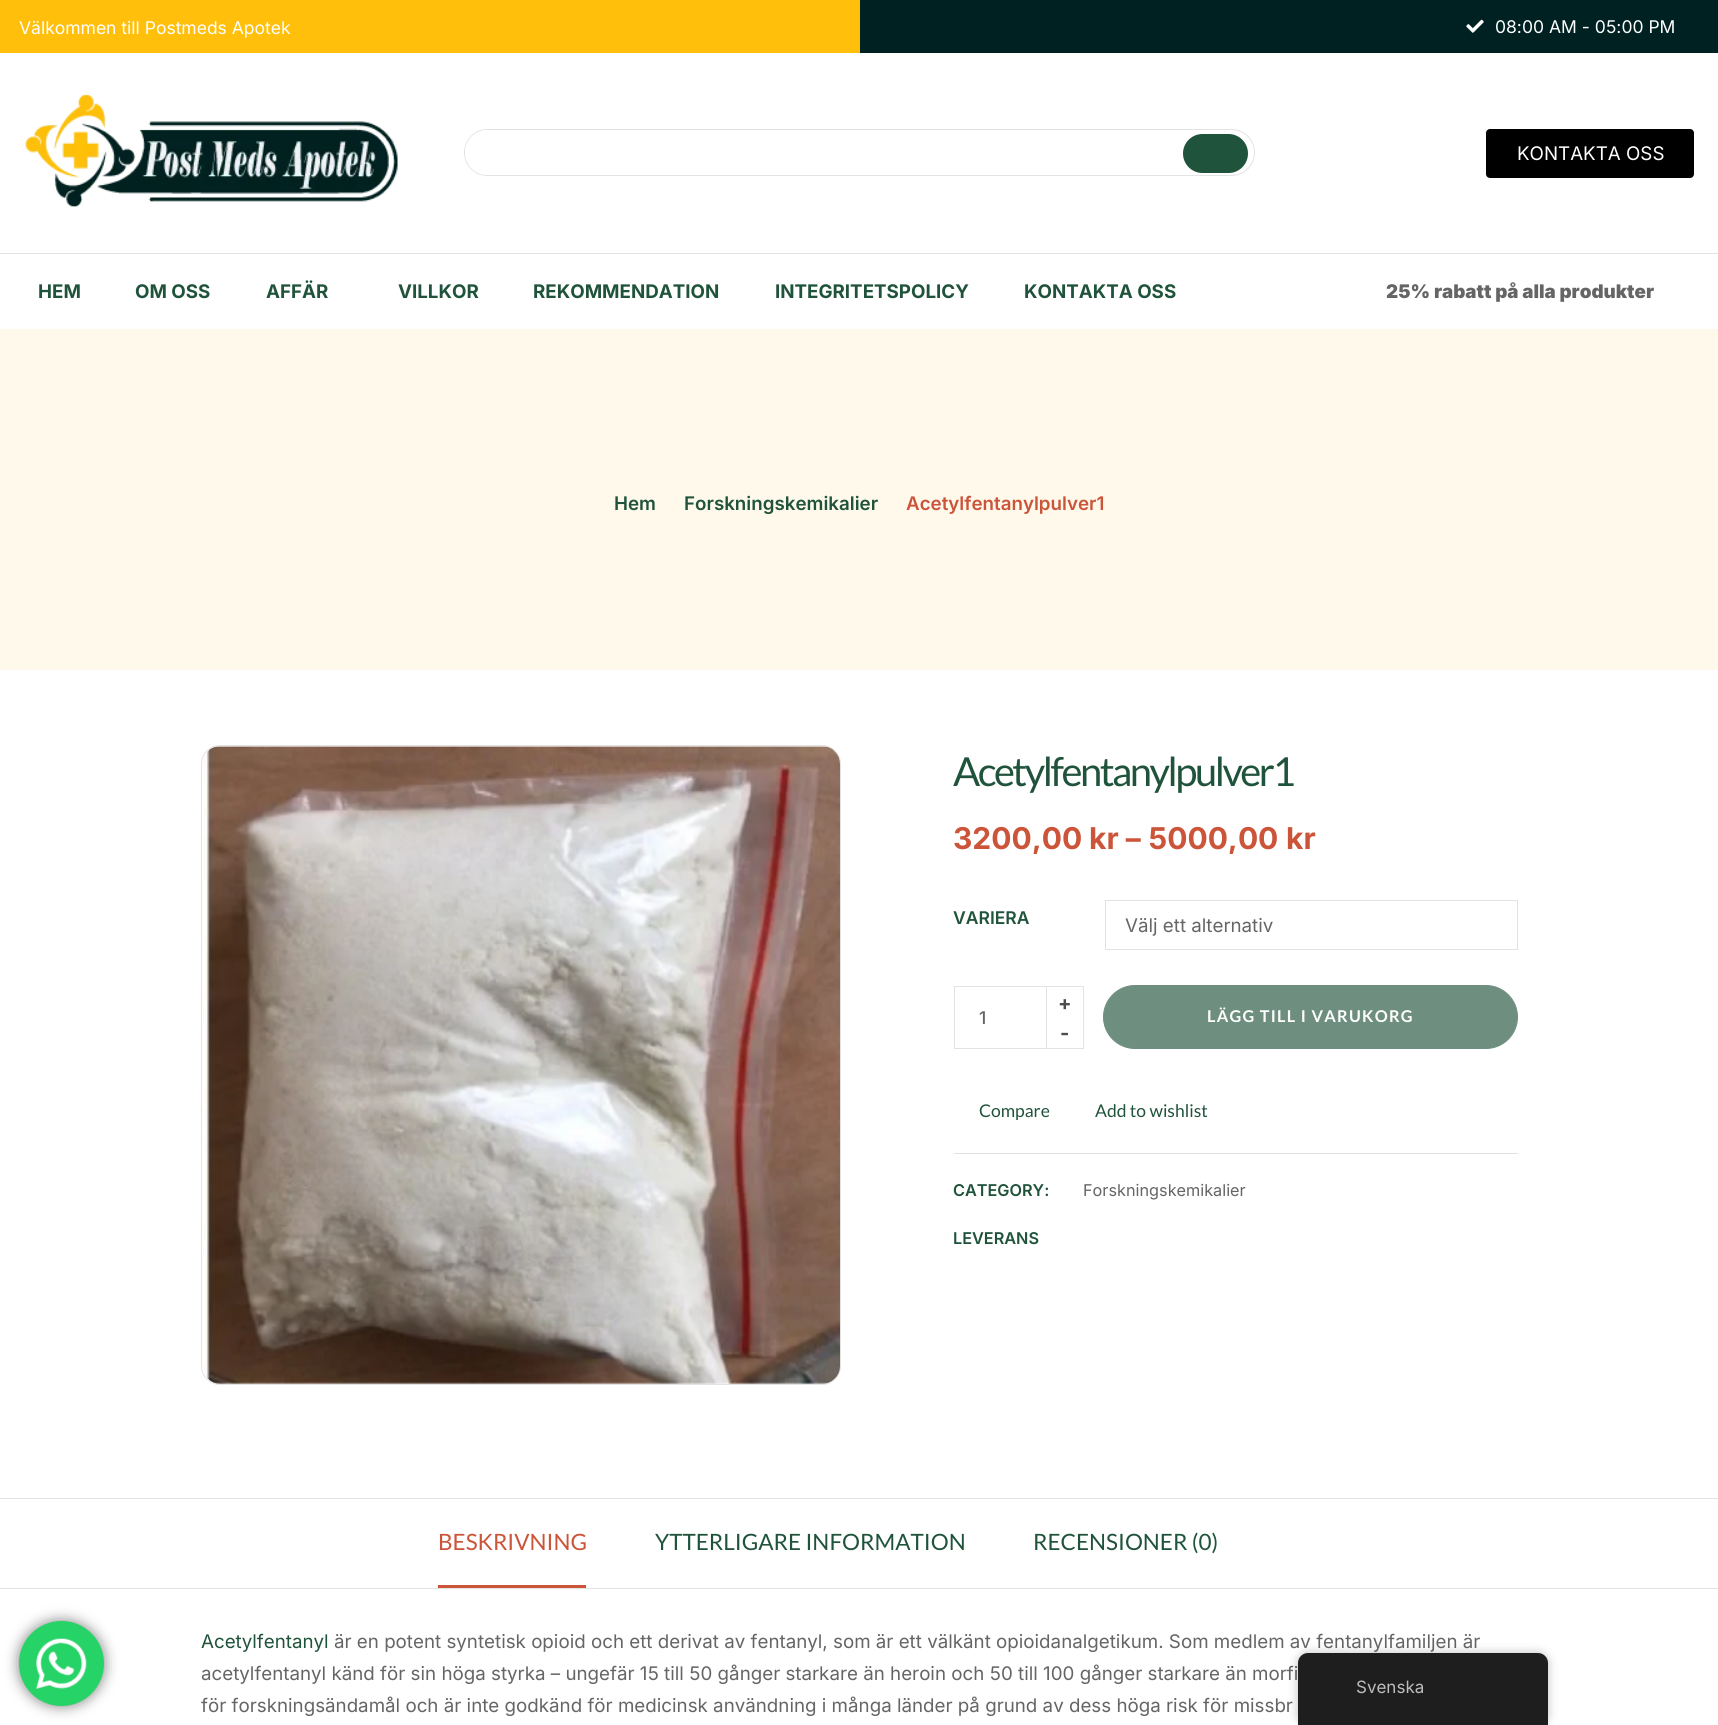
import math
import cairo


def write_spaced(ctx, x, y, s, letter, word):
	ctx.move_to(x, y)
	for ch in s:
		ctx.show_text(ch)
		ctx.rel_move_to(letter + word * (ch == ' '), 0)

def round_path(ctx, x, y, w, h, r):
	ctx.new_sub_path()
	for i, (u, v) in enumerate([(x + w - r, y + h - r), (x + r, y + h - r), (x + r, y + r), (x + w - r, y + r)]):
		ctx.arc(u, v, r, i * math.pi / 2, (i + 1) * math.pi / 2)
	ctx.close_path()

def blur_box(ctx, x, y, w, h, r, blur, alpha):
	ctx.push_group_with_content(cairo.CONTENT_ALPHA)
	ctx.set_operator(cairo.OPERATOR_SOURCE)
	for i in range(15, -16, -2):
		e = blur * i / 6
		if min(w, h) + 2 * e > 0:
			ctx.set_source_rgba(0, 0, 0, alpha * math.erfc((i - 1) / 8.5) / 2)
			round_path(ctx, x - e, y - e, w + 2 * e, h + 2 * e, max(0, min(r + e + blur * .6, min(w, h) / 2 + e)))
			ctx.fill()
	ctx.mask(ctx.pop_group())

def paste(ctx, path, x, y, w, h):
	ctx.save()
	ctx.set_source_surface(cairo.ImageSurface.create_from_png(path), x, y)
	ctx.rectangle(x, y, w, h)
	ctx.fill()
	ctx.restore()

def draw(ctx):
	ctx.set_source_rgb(1, 1, 1)
	ctx.paint()
	ctx.set_source_rgb(0, 0.129, 0.129)
	ctx.rectangle(860, 0, 858, 53)
	ctx.fill()
	ctx.set_source_rgb(1, 0.749, 0.043)
	ctx.rectangle(0, 0, 860, 53)
	ctx.fill()
	ctx.select_font_face('Inter')
	ctx.set_font_size(17.5)
	ctx.set_source_rgb(1, 1, 1)
	ctx.move_to(19, 34)
	ctx.show_text('Välkommen till Postmeds Apotek')
	paste(ctx, 'media/1.png', 1466, 19, 18, 14)
	ctx.move_to(1495, 33)
	ctx.show_text('08:00 AM - 05:00 PM')
	paste(ctx, 'media/2.png', 25, 94, 373, 113)
	round_path(ctx, 464.5, 129.5, 790, 46, 23)
	ctx.set_source_rgb(0.89, 0.89, 0.89)
	ctx.set_line_width(1)
	ctx.stroke()
	ctx.set_source_rgb(1, 1, 1)
	round_path(ctx, 465, 130, 718, 45, 22.5)
	ctx.fill()
	ctx.set_source_rgb(0.125, 0.325, 0.231)
	round_path(ctx, 1183, 134, 65, 39, 19.5)
	ctx.fill()
	ctx.set_source_rgb(0, 0, 0)
	round_path(ctx, 1486, 129, 208, 49, 4)
	ctx.fill()
	ctx.set_font_size(18.75)
	ctx.set_source_rgb(1, 1, 1)
	ctx.move_to(1517, 160)
	ctx.show_text('KONTAKTA OSS')
	ctx.set_source_rgb(0.89, 0.89, 0.89)
	ctx.rectangle(0, 253, 1718, 1)
	ctx.fill()
	ctx.select_font_face('Inter', cairo.FONT_SLANT_NORMAL, cairo.FONT_WEIGHT_BOLD)
	ctx.set_source_rgb(0.125, 0.325, 0.231)
	for x, y, s in [
		(38, 298, 'HEM'),
		(135, 298, 'OM OSS'),
		(266, 298, 'AFFÄR'),
		(398, 298, 'VILLKOR'),
		(533, 298, 'REKOMMENDATION'),
		(775, 298, 'INTEGRITETSPOLICY'),
		(1024, 298, 'KONTAKTA OSS'),
	]:
		ctx.move_to(x, y)
		ctx.show_text(s)
	ctx.select_font_face('Inter Black')
	ctx.set_source_rgb(0.396, 0.396, 0.396)
	ctx.move_to(1386, 298)
	ctx.show_text('25% rabatt på alla produkter')
	ctx.set_source_rgb(1, 0.973, 0.925)
	ctx.rectangle(0, 329, 1718, 341)
	ctx.fill()
	ctx.select_font_face('Inter SemiBold')
	ctx.set_source_rgb(0.125, 0.325, 0.231)
	ctx.move_to(614, 510)
	ctx.show_text('Hem')
	ctx.move_to(684, 510)
	ctx.show_text('Forskningskemikalier')
	ctx.set_source_rgb(0.796, 0.329, 0.224)
	ctx.move_to(906, 510)
	ctx.show_text('Acetylfentanylpulver1')
	round_path(ctx, 201.5, 745.5, 639, 639, 18.5)
	ctx.set_source_rgb(0.89, 0.89, 0.89)
	ctx.stroke()
	paste(ctx, 'media/3.png', 203, 746, 637, 638)
	ctx.select_font_face('Lato')
	ctx.set_font_size(40)
	ctx.set_source_rgb(0.125, 0.325, 0.231)
	write_spaced(ctx, 953, 786, 'Acetylfentanylpulver1', -2.5, 0)
	ctx.save()
	ctx.rectangle(954, 821, 564, 33)
	ctx.clip()
	ctx.select_font_face('Inter', cairo.FONT_SLANT_NORMAL, cairo.FONT_WEIGHT_BOLD)
	ctx.set_font_size(30)
	ctx.set_source_rgb(0.796, 0.329, 0.224)
	ctx.move_to(953, 849)
	ctx.show_text('3200,00')
	ctx.restore()
	ctx.select_font_face('Inter', cairo.FONT_SLANT_NORMAL, cairo.FONT_WEIGHT_BOLD)
	ctx.set_font_size(30)
	ctx.set_source_rgb(0.796, 0.329, 0.224)
	ctx.move_to(1089, 849)
	ctx.show_text('kr –')
	ctx.save()
	ctx.rectangle(954, 821, 564, 33)
	ctx.clip()
	ctx.move_to(1148, 849)
	ctx.show_text('5000,00')
	ctx.restore()
	ctx.move_to(1286, 849)
	ctx.show_text('kr')
	ctx.select_font_face('Inter SemiBold')
	ctx.set_font_size(17.5)
	ctx.set_source_rgb(0.125, 0.325, 0.231)
	ctx.move_to(953, 924)
	ctx.show_text('VARIERA')
	ctx.rectangle(1105.5, 900.5, 412, 49)
	ctx.set_source_rgb(0.89, 0.89, 0.89)
	ctx.stroke()
	ctx.select_font_face('Inter')
	ctx.set_font_size(18.75)
	ctx.set_source_rgb(0.396, 0.396, 0.396)
	ctx.move_to(1125, 932)
	ctx.show_text('Välj ett alternativ')
	ctx.set_source_rgb(0.89, 0.89, 0.89)
	ctx.rectangle(1064, 986, 20, 1)
	ctx.fill()
	ctx.rectangle(1083, 986, 1, 32)
	ctx.fill()
	ctx.rectangle(954.5, 986.5, 109, 62)
	ctx.stroke()
	ctx.set_source_rgb(1, 1, 1)
	ctx.rectangle(1063, 987, 1, 61)
	ctx.fill()
	ctx.select_font_face('Inter', cairo.FONT_SLANT_NORMAL, cairo.FONT_WEIGHT_BOLD)
	ctx.set_font_size(20)
	ctx.set_source_rgb(0.298, 0.298, 0.298)
	ctx.move_to(1058, 1010)
	ctx.show_text('+')
	ctx.select_font_face('Inter Medium')
	ctx.set_font_size(17.5)
	ctx.set_source_rgb(0.396, 0.396, 0.396)
	ctx.move_to(979, 1024)
	ctx.show_text('1')
	ctx.set_source_rgb(0.89, 0.89, 0.89)
	ctx.rectangle(1083, 1018, 1, 31)
	ctx.rectangle(1064, 1048, 20, 1)
	ctx.rectangle(1046, 986, 1, 63)
	ctx.fill()
	ctx.select_font_face('Inter', cairo.FONT_SLANT_NORMAL, cairo.FONT_WEIGHT_BOLD)
	ctx.set_font_size(20)
	ctx.set_source_rgb(0.298, 0.298, 0.298)
	ctx.move_to(1060, 1040)
	ctx.show_text('-')
	ctx.set_source_rgb(0.431, 0.561, 0.502)
	round_path(ctx, 1103.5, 985.5, 414, 63, 31.5)
	ctx.fill_preserve()
	ctx.stroke()
	ctx.select_font_face('Lato', cairo.FONT_SLANT_NORMAL, cairo.FONT_WEIGHT_BOLD)
	ctx.set_font_size(16.25)
	ctx.set_source_rgb(1, 1, 1)
	write_spaced(ctx, 1207, 1022, 'LÄGG TILL I VARUKORG', 1.25, 0)
	ctx.select_font_face('Lato')
	ctx.set_font_size(17.5)
	ctx.set_source_rgb(0.125, 0.325, 0.231)
	ctx.move_to(979, 1117)
	ctx.show_text('Compare')
	ctx.move_to(1095, 1117)
	ctx.show_text('Add to wishlist')
	ctx.set_source_rgb(0.89, 0.89, 0.89)
	ctx.rectangle(954, 1153, 564, 1)
	ctx.fill()
	ctx.select_font_face('Inter SemiBold')
	ctx.set_font_size(16.25)
	ctx.set_source_rgb(0.125, 0.325, 0.231)
	ctx.move_to(953, 1196)
	ctx.show_text('CATEGORY:')
	ctx.select_font_face('Inter')
	ctx.set_source_rgb(0.396, 0.396, 0.396)
	ctx.move_to(1083, 1196)
	ctx.show_text('Forskningskemikalier')
	ctx.select_font_face('Inter SemiBold')
	ctx.set_source_rgb(0.125, 0.325, 0.231)
	ctx.move_to(953, 1244)
	ctx.show_text('LEVERANS')
	ctx.set_source_rgb(0.89, 0.89, 0.89)
	ctx.rectangle(0, 1498, 1718, 1)
	ctx.fill()
	ctx.set_source_rgb(0.796, 0.329, 0.224)
	ctx.rectangle(438, 1585, 148, 3)
	ctx.fill()
	ctx.select_font_face('Lato')
	ctx.set_font_size(22.5)
	ctx.move_to(438, 1550)
	ctx.show_text('BESKRIVNING')
	ctx.set_source_rgb(0.125, 0.325, 0.231)
	ctx.move_to(655, 1550)
	ctx.show_text('YTTERLIGARE INFORMATION')
	ctx.move_to(1033, 1550)
	ctx.show_text('RECENSIONER (0)')
	ctx.set_source_rgb(0.89, 0.89, 0.89)
	ctx.rectangle(0, 1588, 1718, 1)
	ctx.fill()
	ctx.select_font_face('Inter')
	ctx.set_font_size(18.75)
	ctx.set_source_rgb(0.125, 0.325, 0.231)
	ctx.move_to(201, 1648)
	ctx.show_text('Acetylfentanyl')
	ctx.set_source_rgb(0.396, 0.396, 0.396)
	for x, y, s in [
		(334, 1648, 'är en potent syntetisk opioid och ett derivat av fentanyl, som är ett välkänt opioidanalgetikum. Som medlem av fentanylfamiljen är'),
		(201, 1680, 'acetylfentanyl känd för sin höga styrka – ungefär 15 till 50 gånger starkare än heroin och 50 till 100 gånger starkare än morfi'),
		(201, 1712, 'för forskningsändamål och är inte godkänd för medicinsk användning i många länder på grund av dess höga risk för missbr'),
	]:
		ctx.move_to(x, y)
		ctx.show_text(s)
	ctx.set_source_rgb(0, 0, 0)
	blur_box(ctx, 19, 1621, 85, 85, 42.5, 7, 0.5)
	ctx.set_source_rgb(0.145, 0.827, 0.4)
	ctx.arc(61.5, 1663.5, 42.5, 0, 2 * math.pi)
	ctx.fill()
	paste(ctx, 'media/4.png', 36, 1638, 51, 51)
	ctx.set_source_rgb(0, 0, 0)
	blur_box(ctx, 1298, 1653, 250, 72, 10, 5, 0.25)
	ctx.set_source_rgb(0.118, 0.118, 0.118)
	ctx.new_path()
	ctx.move_to(1308, 1653)
	ctx.line_to(1538, 1653)
	ctx.curve_to(1543.5, 1653, 1548, 1657.5, 1548, 1663)
	ctx.line_to(1548, 1725)
	ctx.line_to(1298, 1725)
	ctx.line_to(1298, 1663)
	ctx.curve_to(1298, 1657.5, 1302.5, 1653, 1308, 1653)
	ctx.close_path()
	ctx.fill()
	ctx.set_font_size(17)
	ctx.set_source_rgb(0.741, 0.741, 0.741)
	ctx.move_to(1356, 1693)
	ctx.show_text('Svenska')


surface = cairo.ImageSurface(cairo.FORMAT_RGB24, 1718, 1725)
ctx = cairo.Context(surface)
options = cairo.FontOptions()
options.set_hint_metrics(cairo.HINT_METRICS_OFF)
options.set_hint_style(cairo.HINT_STYLE_NONE)
ctx.set_font_options(options)
ctx.set_miter_limit(4)
draw(ctx)
surface.write_to_png('image.png')
